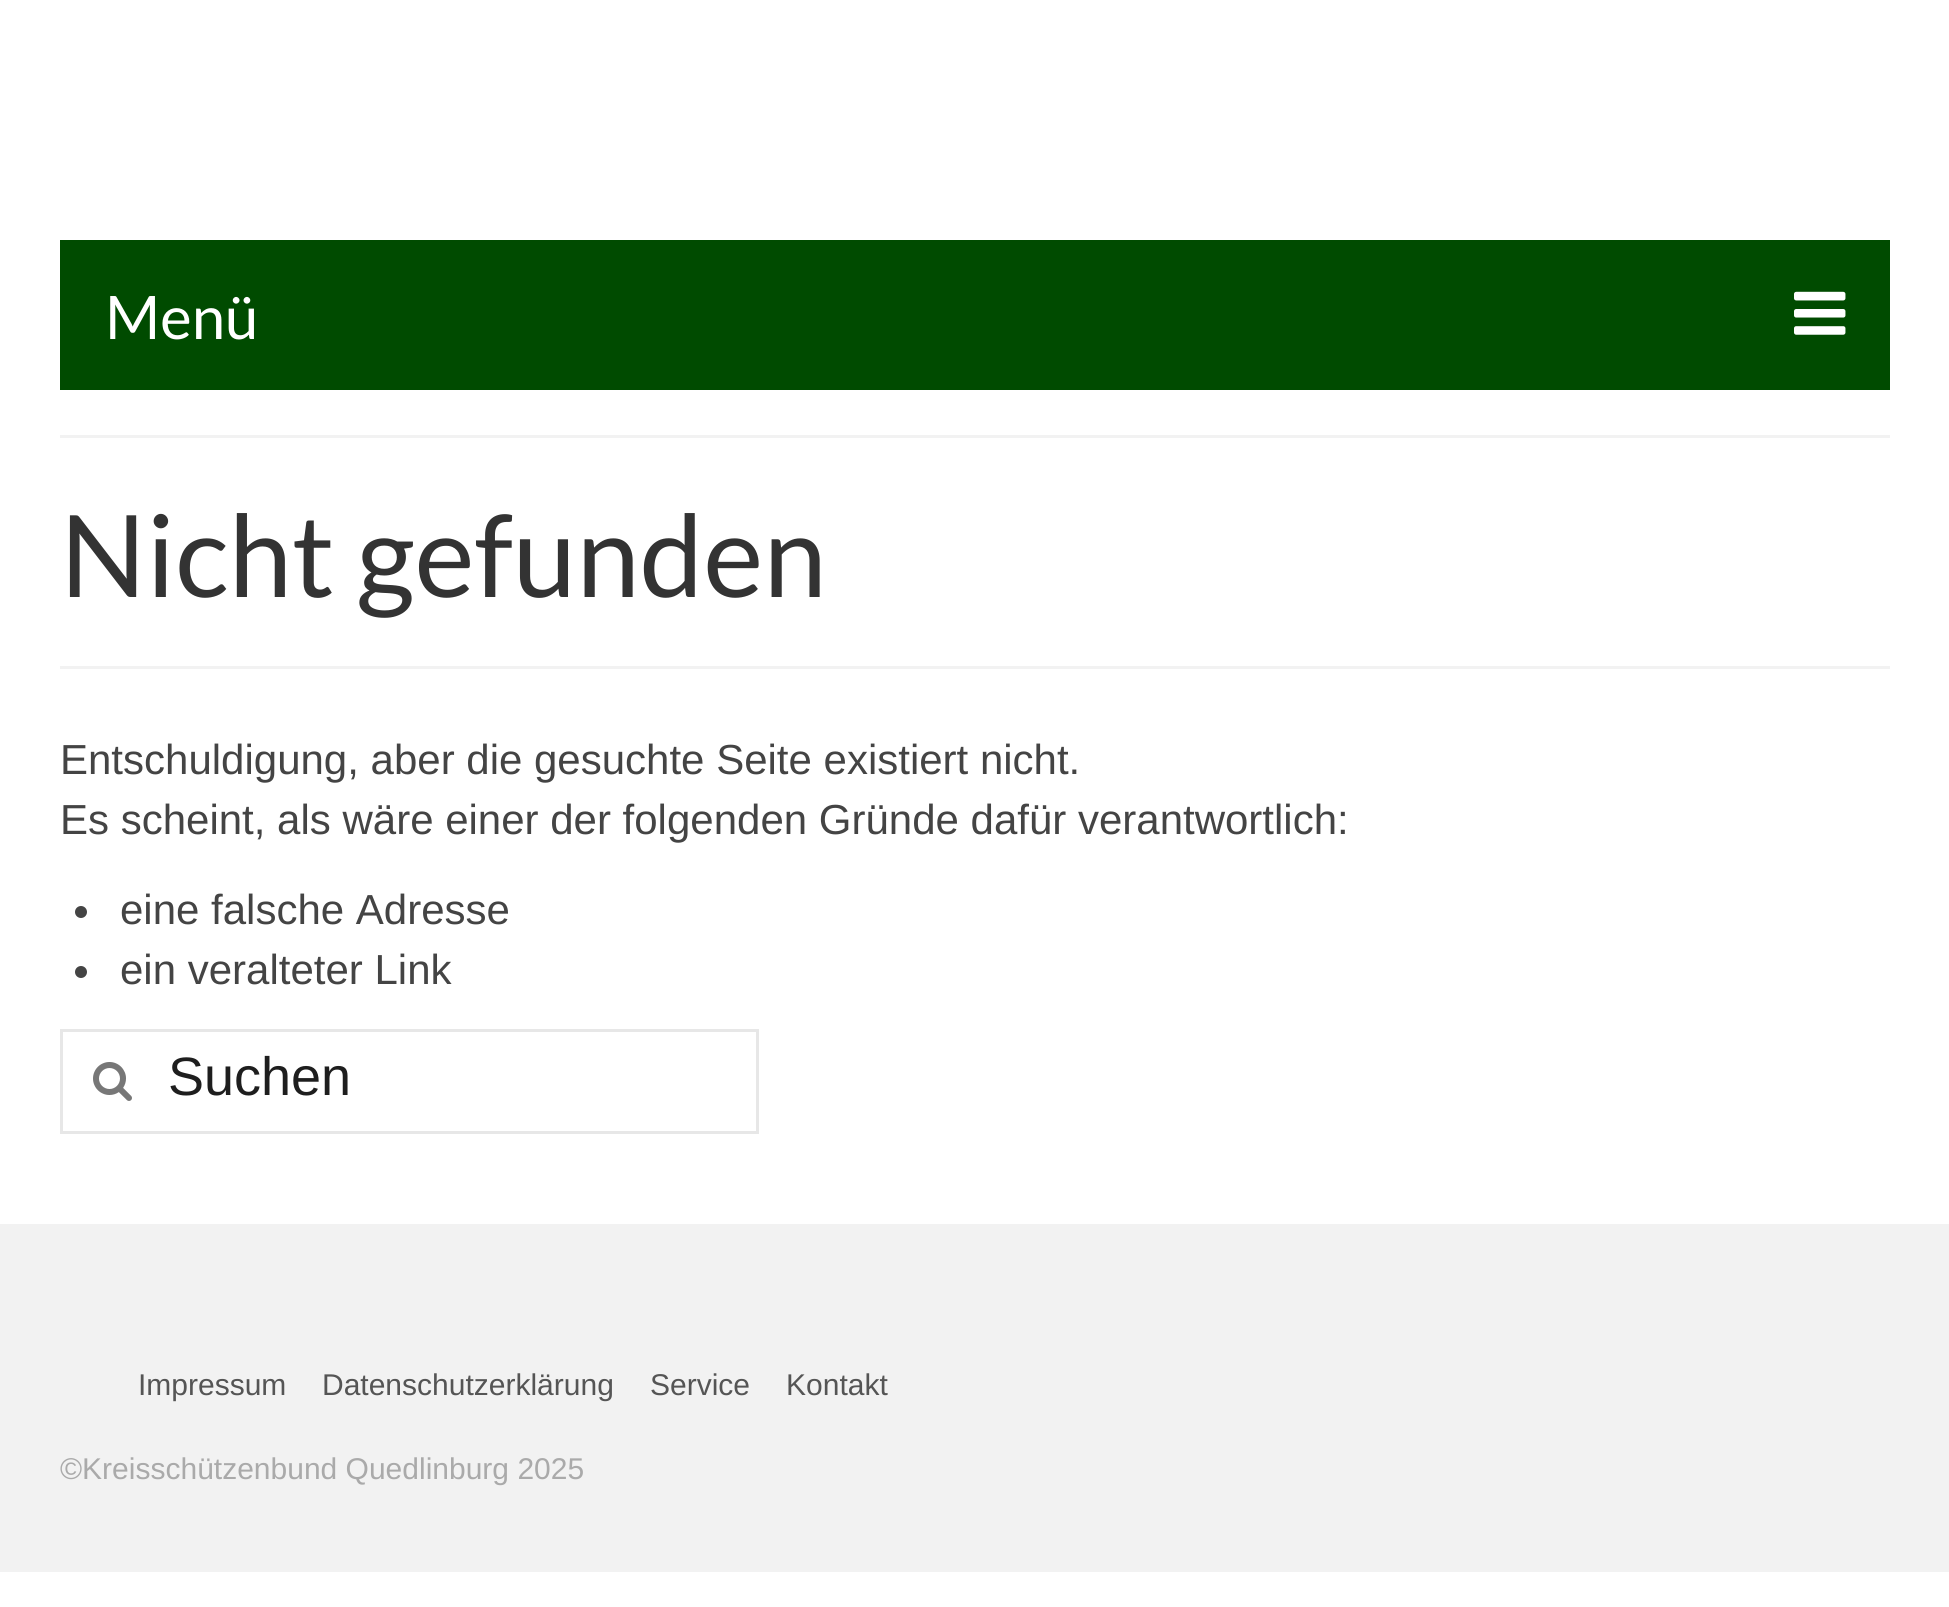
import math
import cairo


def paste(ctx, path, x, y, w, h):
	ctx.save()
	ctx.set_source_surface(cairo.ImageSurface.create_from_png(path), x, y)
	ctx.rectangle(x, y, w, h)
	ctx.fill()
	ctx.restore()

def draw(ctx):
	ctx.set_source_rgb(1, 1, 1)
	ctx.paint()
	ctx.set_source_rgb(0, 0.294, 0)
	ctx.rectangle(60, 240, 1830, 150)
	ctx.fill()
	ctx.select_font_face('Lato')
	ctx.set_font_size(60)
	ctx.set_source_rgb(1, 1, 1)
	ctx.move_to(105, 339)
	ctx.show_text('Menü')
	paste(ctx, 'media/1.png', 1794, 291, 52, 44)
	ctx.set_source_rgb(0.949, 0.949, 0.949)
	ctx.rectangle(60, 435, 1830, 3)
	ctx.fill()
	ctx.rectangle(60, 666, 1830, 3)
	ctx.fill()
	ctx.set_font_size(114)
	ctx.set_source_rgb(0.2, 0.2, 0.2)
	ctx.move_to(60, 597)
	ctx.show_text('Nicht gefunden')
	ctx.select_font_face('Liberation Sans')
	ctx.set_font_size(42)
	ctx.set_source_rgb(0.267, 0.267, 0.267)
	ctx.move_to(60, 774)
	ctx.show_text('Entschuldigung, aber die gesuchte Seite existiert nicht.')
	ctx.move_to(60, 834)
	ctx.show_text('Es scheint, als wäre einer der folgenden Gründe dafür verantwortlich:')
	ctx.new_path()
	ctx.arc(81, 912, 6, 0, 2 * math.pi)
	ctx.fill()
	ctx.move_to(120, 924)
	ctx.show_text('eine falsche Adresse')
	ctx.new_path()
	ctx.arc(81, 972, 6, 0, 2 * math.pi)
	ctx.fill()
	ctx.move_to(120, 984)
	ctx.show_text('ein veralteter Link')
	ctx.rectangle(61.5, 1030.5, 696, 102)
	ctx.set_source_rgb(0.906, 0.906, 0.906)
	ctx.set_line_width(3)
	ctx.stroke()
	paste(ctx, 'media/2.png', 93, 1062, 39, 39)
	ctx.set_font_size(54)
	ctx.set_source_rgb(0.118, 0.118, 0.118)
	ctx.move_to(168, 1095)
	ctx.show_text('Suchen')
	ctx.set_source_rgb(0.949, 0.949, 0.949)
	ctx.rectangle(0, 1224, 1949, 348)
	ctx.fill()
	ctx.set_font_size(30)
	ctx.set_source_rgb(0.333, 0.333, 0.333)
	for x, y, s in [
		(138, 1395, 'Impressum'),
		(322, 1395, 'Datenschutzerklärung'),
		(650, 1395, 'Service'),
		(786, 1395, 'Kontakt'),
	]:
		ctx.move_to(x, y)
		ctx.show_text(s)
	ctx.set_source_rgb(0.667, 0.667, 0.667)
	ctx.move_to(60, 1479)
	ctx.show_text('©Kreisschützenbund Quedlinburg 2025')


surface = cairo.ImageSurface(cairo.FORMAT_RGB24, 1949, 1607)
ctx = cairo.Context(surface)
options = cairo.FontOptions()
options.set_hint_metrics(cairo.HINT_METRICS_OFF)
options.set_hint_style(cairo.HINT_STYLE_NONE)
ctx.set_font_options(options)
ctx.set_miter_limit(4)
draw(ctx)
surface.write_to_png('image.png')
